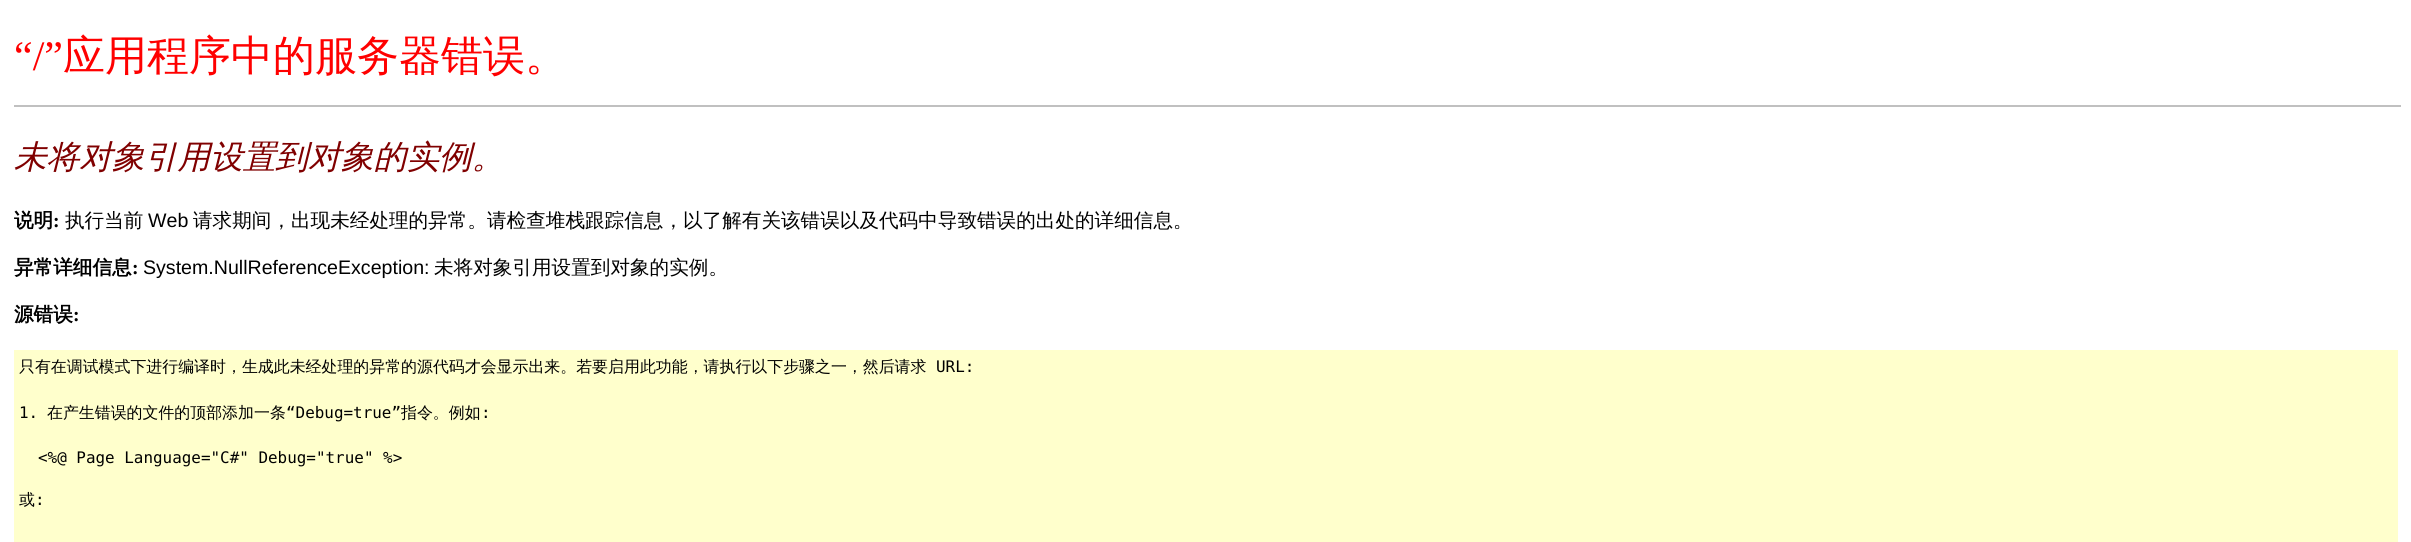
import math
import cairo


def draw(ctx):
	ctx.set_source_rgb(1, 1, 1)
	ctx.paint()
	ctx.select_font_face('Liberation Serif')
	ctx.set_font_size(42)
	ctx.set_source_rgb(1, 0, 0)
	ctx.move_to(14, 70)
	ctx.show_text('“/”')
	ctx.select_font_face('WenQuanYi Zen Hei Medium')
	ctx.move_to(63, 70)
	ctx.show_text('应用程序中的服务器错误。')
	ctx.set_source_rgb(0.753, 0.753, 0.753)
	ctx.rectangle(14, 105, 2387, 2)
	ctx.fill()
	ctx.select_font_face('WenQuanYi Zen Hei Medium', cairo.FONT_SLANT_ITALIC)
	ctx.set_font_size(32.7)
	ctx.set_source_rgb(0.502, 0, 0)
	ctx.move_to(14, 168)
	ctx.show_text('未将对象引用设置到对象的实例。')
	ctx.select_font_face('WenQuanYi Zen Hei', cairo.FONT_SLANT_NORMAL, cairo.FONT_WEIGHT_BOLD)
	ctx.set_font_size(19.6)
	ctx.set_source_rgb(0, 0, 0)
	ctx.move_to(14, 227)
	ctx.show_text('说明')
	ctx.select_font_face('Liberation Serif', cairo.FONT_SLANT_NORMAL, cairo.FONT_WEIGHT_BOLD)
	ctx.move_to(53, 227)
	ctx.show_text(':')
	ctx.select_font_face('WenQuanYi Zen Hei Medium')
	ctx.move_to(65, 227)
	ctx.show_text('执行当前')
	ctx.select_font_face('Liberation Sans')
	ctx.move_to(148, 227)
	ctx.show_text('Web')
	ctx.select_font_face('WenQuanYi Zen Hei Medium')
	ctx.move_to(193, 227)
	ctx.show_text('请求期间，出现未经处理的异常。请检查堆栈跟踪信息，以了解有关该错误以及代码中导致错误的出处的详细信息。')
	ctx.select_font_face('WenQuanYi Zen Hei', cairo.FONT_SLANT_NORMAL, cairo.FONT_WEIGHT_BOLD)
	ctx.move_to(14, 274)
	ctx.show_text('异常详细信息')
	ctx.select_font_face('Liberation Serif', cairo.FONT_SLANT_NORMAL, cairo.FONT_WEIGHT_BOLD)
	ctx.move_to(132, 274)
	ctx.show_text(':')
	ctx.select_font_face('Liberation Sans')
	ctx.move_to(143, 274)
	ctx.show_text('System.NullReferenceException:')
	ctx.select_font_face('WenQuanYi Zen Hei Medium')
	ctx.move_to(434, 274)
	ctx.show_text('未将对象引用设置到对象的实例。')
	ctx.select_font_face('WenQuanYi Zen Hei', cairo.FONT_SLANT_NORMAL, cairo.FONT_WEIGHT_BOLD)
	ctx.move_to(14, 321)
	ctx.show_text('源错误')
	ctx.select_font_face('Liberation Serif', cairo.FONT_SLANT_NORMAL, cairo.FONT_WEIGHT_BOLD)
	ctx.move_to(73, 321)
	ctx.show_text(':')
	ctx.set_source_rgb(1, 1, 0.8)
	ctx.rectangle(14, 350, 2384, 192)
	ctx.fill()
	ctx.select_font_face('WenQuanYi Zen Hei Medium')
	ctx.set_font_size(15.92)
	ctx.set_source_rgb(0, 0, 0)
	ctx.move_to(19, 372)
	ctx.show_text('只有在调试模式下进行编译时，生成此未经处理的异常的源代码才会显示出来。若要启用此功能，请执行以下步骤之一，然后请求')
	ctx.select_font_face('DejaVu Sans Mono')
	ctx.move_to(936, 372)
	ctx.show_text('URL:')
	ctx.move_to(19, 418)
	ctx.show_text('1.')
	ctx.select_font_face('WenQuanYi Zen Hei Medium')
	ctx.move_to(47, 418)
	ctx.show_text('在产生错误的文件的顶部添加一条')
	ctx.select_font_face('DejaVu Sans Mono')
	ctx.move_to(286, 418)
	ctx.show_text('“Debug=true”')
	ctx.select_font_face('WenQuanYi Zen Hei Medium')
	ctx.move_to(401, 418)
	ctx.show_text('指令。例如')
	ctx.select_font_face('DejaVu Sans Mono')
	ctx.move_to(481, 418)
	ctx.show_text(':')
	ctx.move_to(38, 463)
	ctx.show_text('<%@ Page Language="C#" Debug="true" %>')
	ctx.select_font_face('WenQuanYi Zen Hei Medium')
	ctx.move_to(19, 505)
	ctx.show_text('或')
	ctx.select_font_face('DejaVu Sans Mono')
	ctx.move_to(35, 505)
	ctx.show_text(':')


surface = cairo.ImageSurface(cairo.FORMAT_RGB24, 2411, 542)
ctx = cairo.Context(surface)
options = cairo.FontOptions()
options.set_hint_metrics(cairo.HINT_METRICS_OFF)
options.set_hint_style(cairo.HINT_STYLE_NONE)
ctx.set_font_options(options)
ctx.set_miter_limit(4)
draw(ctx)
surface.write_to_png('image.png')
